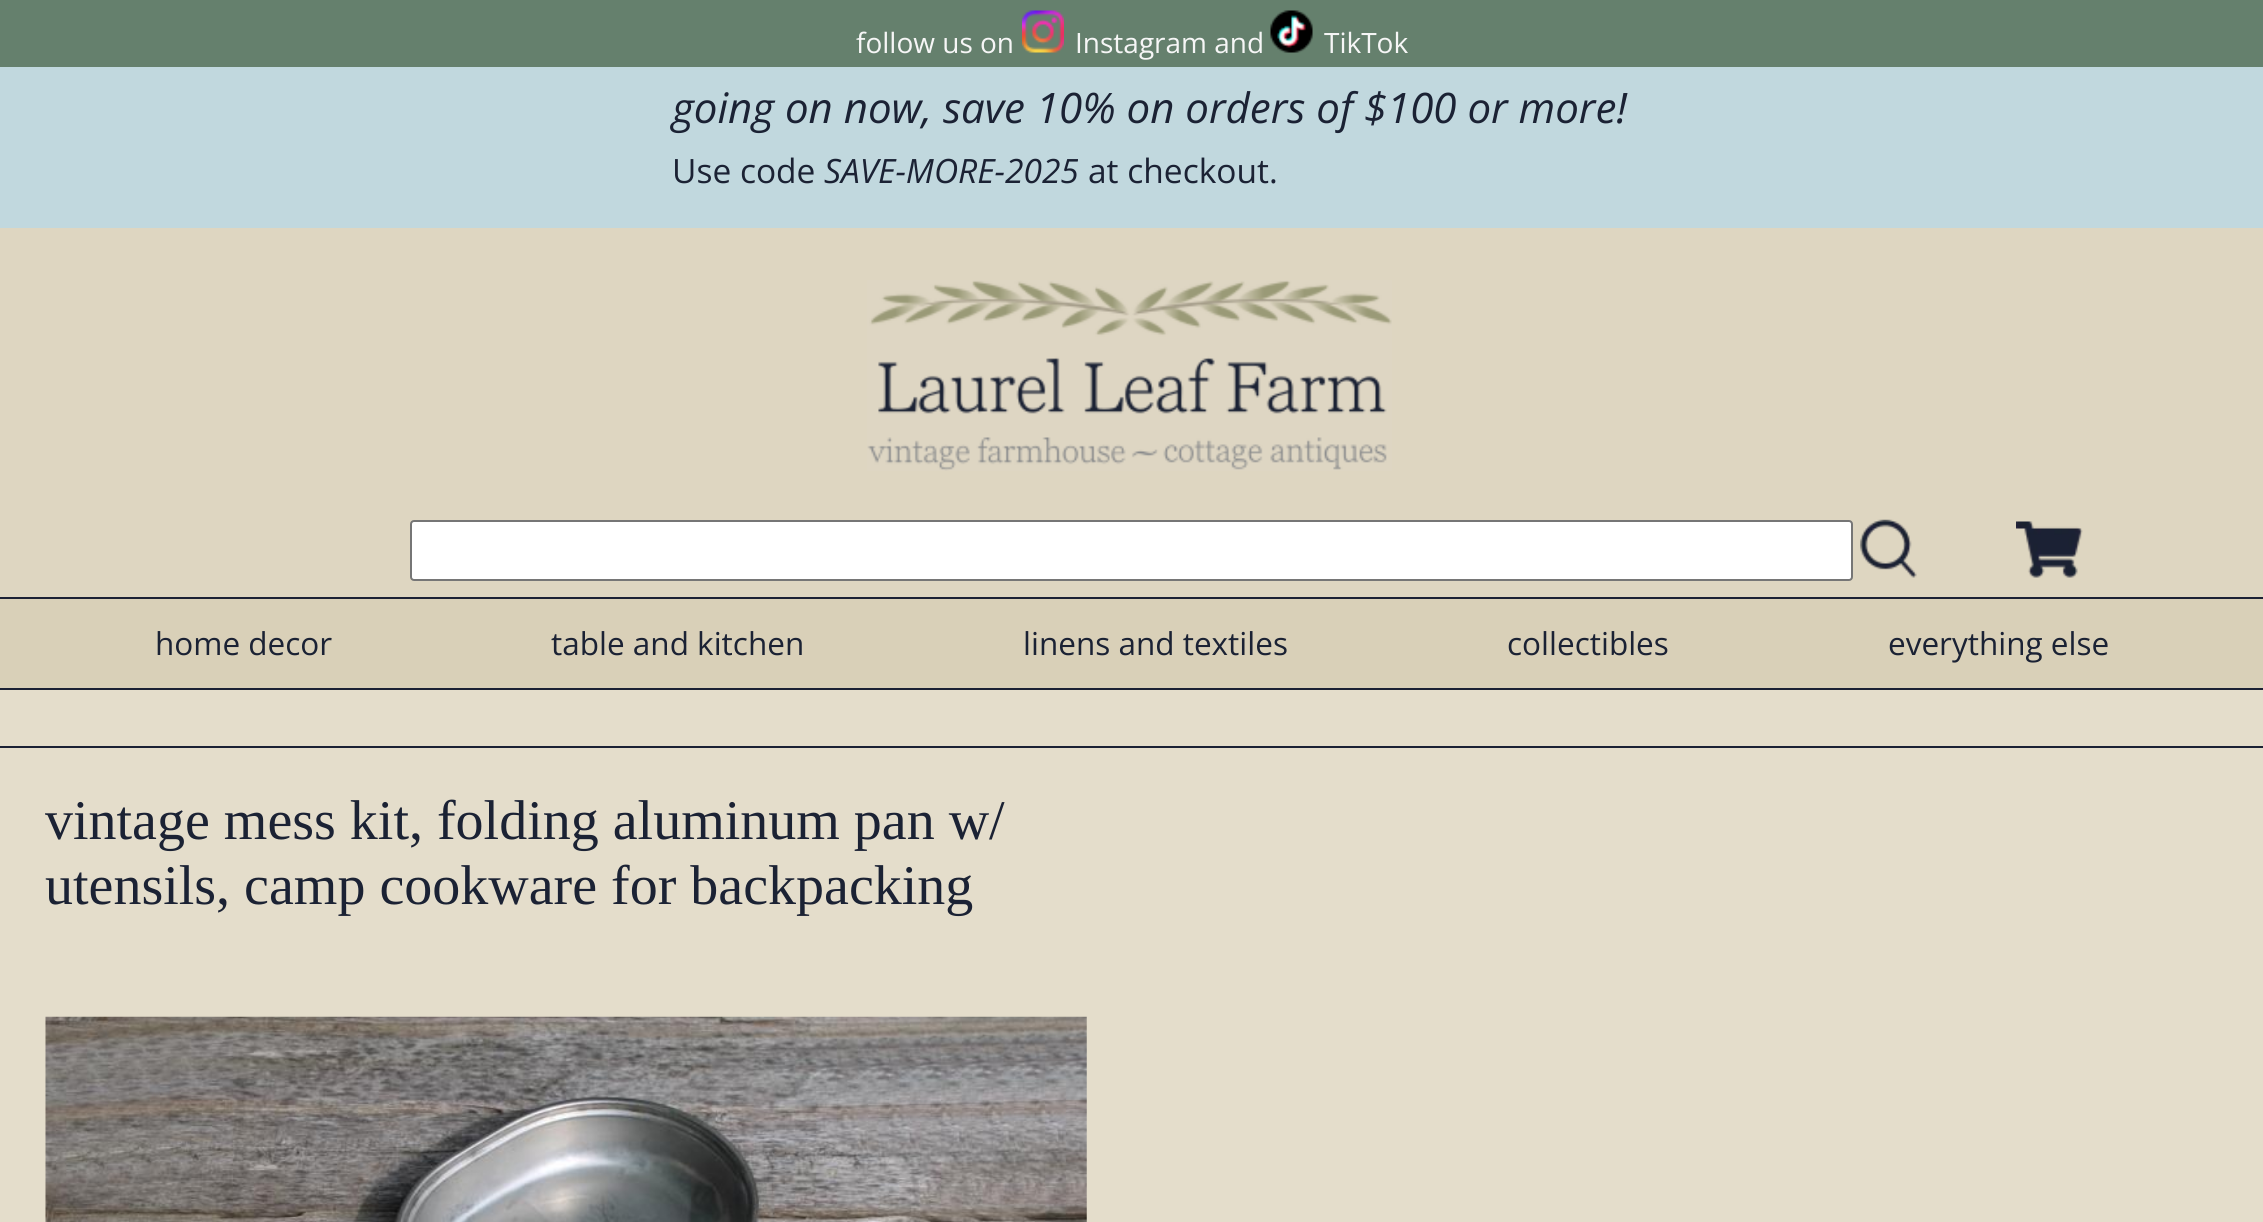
import math
import cairo


def round_path(ctx, x, y, w, h, r):
	ctx.new_sub_path()
	for i, (u, v) in enumerate([(x + w - r, y + h - r), (x + r, y + h - r), (x + r, y + r), (x + w - r, y + r)]):
		ctx.arc(u, v, r, i * math.pi / 2, (i + 1) * math.pi / 2)
	ctx.close_path()

def paste(ctx, path, x, y, w, h):
	ctx.save()
	ctx.set_source_surface(cairo.ImageSurface.create_from_png(path), x, y)
	ctx.rectangle(x, y, w, h)
	ctx.fill()
	ctx.restore()

def draw(ctx):
	ctx.set_source_rgb(0.894, 0.867, 0.796)
	ctx.paint()
	ctx.set_source_rgb(0.871, 0.839, 0.757)
	ctx.rectangle(0, 228, 2263, 369)
	ctx.fill()
	ctx.set_source_rgb(0.106, 0.129, 0.204)
	ctx.rectangle(0, 688, 2263, 2)
	ctx.fill()
	ctx.set_source_rgb(0.396, 0.502, 0.427)
	ctx.rectangle(0, 0, 2263, 67)
	ctx.fill()
	ctx.select_font_face('Open Sans')
	ctx.set_font_size(28)
	ctx.set_source_rgb(0.961, 0.961, 0.961)
	ctx.move_to(856, 53)
	ctx.show_text('follow us on')
	paste(ctx, 'media/1.png', 1022, 10, 42, 43)
	ctx.move_to(1075, 53)
	ctx.show_text('Instagram and')
	paste(ctx, 'media/2.png', 1270, 10, 43, 43)
	ctx.move_to(1324, 53)
	ctx.show_text('TikTok')
	ctx.set_source_rgb(0.757, 0.847, 0.871)
	ctx.rectangle(0, 67, 2263, 161)
	ctx.fill()
	ctx.select_font_face('Open Sans', cairo.FONT_SLANT_ITALIC)
	ctx.set_font_size(42)
	ctx.set_source_rgb(0.106, 0.133, 0.204)
	ctx.move_to(672, 123)
	ctx.show_text('going on now, save 10% on orders of $100 or more!')
	ctx.select_font_face('Open Sans')
	ctx.set_font_size(33.5)
	ctx.move_to(672, 183)
	ctx.show_text('Use code')
	ctx.select_font_face('Open Sans', cairo.FONT_SLANT_ITALIC)
	ctx.move_to(824, 183)
	ctx.show_text('SAVE-MORE-2025')
	ctx.select_font_face('Open Sans')
	ctx.move_to(1088, 183)
	ctx.show_text('at checkout.')
	paste(ctx, 'media/3.png', 867, 280, 525, 191)
	ctx.set_source_rgb(0.106, 0.129, 0.204)
	ctx.rectangle(0, 597, 2263, 2)
	ctx.fill()
	ctx.set_source_rgb(1, 1, 1)
	round_path(ctx, 411, 521, 1441, 59, 3)
	ctx.fill_preserve()
	ctx.set_source_rgb(0.463, 0.463, 0.463)
	ctx.stroke()
	paste(ctx, 'media/4.png', 1860, 519, 57, 59)
	paste(ctx, 'media/5.png', 2016, 521, 67, 57)
	ctx.set_source_rgb(0.851, 0.816, 0.722)
	ctx.rectangle(0, 599, 2263, 89)
	ctx.fill()
	ctx.set_font_size(31.5)
	ctx.set_source_rgb(0.106, 0.133, 0.204)
	for x, y, s in [
		(155, 655, 'home decor'),
		(551, 655, 'table and kitchen'),
		(1023, 655, 'linens and textiles'),
		(1507, 655, 'collectibles'),
		(1888, 655, 'everything else'),
	]:
		ctx.move_to(x, y)
		ctx.show_text(s)
	ctx.set_source_rgb(0.106, 0.129, 0.204)
	ctx.rectangle(0, 746, 2263, 2)
	ctx.fill()
	ctx.select_font_face('Liberation Serif')
	ctx.set_font_size(56)
	ctx.set_source_rgb(0.106, 0.133, 0.204)
	ctx.move_to(45, 839)
	ctx.show_text('vintage mess kit, folding aluminum pan w/')
	ctx.move_to(45, 904)
	ctx.show_text('utensils, camp cookware for backpacking')
	paste(ctx, 'media/6.png', 45, 1016, 1042, 206)


surface = cairo.ImageSurface(cairo.FORMAT_RGB24, 2263, 1222)
ctx = cairo.Context(surface)
options = cairo.FontOptions()
options.set_hint_metrics(cairo.HINT_METRICS_OFF)
options.set_hint_style(cairo.HINT_STYLE_NONE)
ctx.set_font_options(options)
ctx.set_miter_limit(4)
draw(ctx)
surface.write_to_png('image.png')
